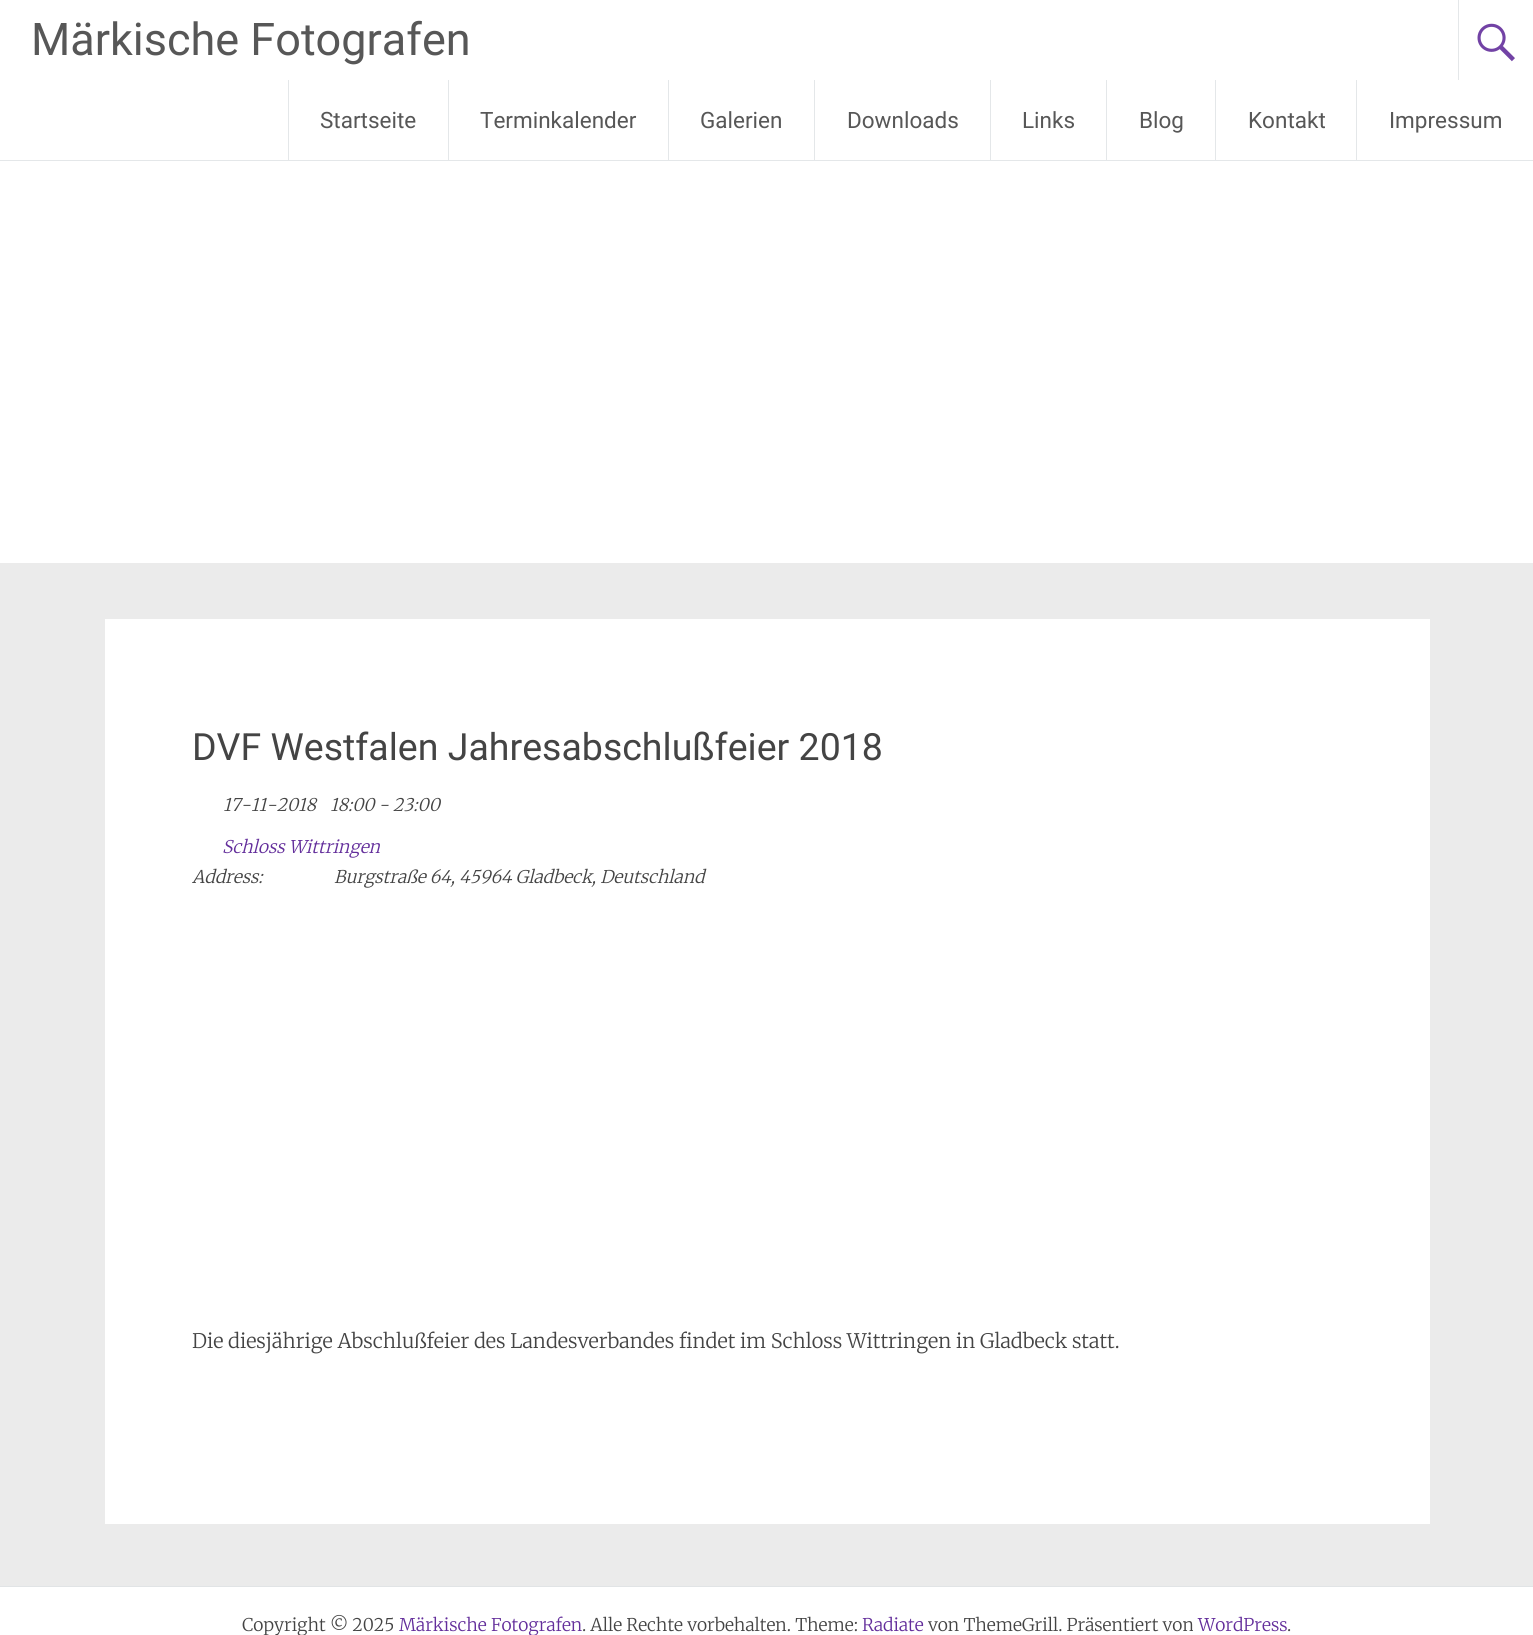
import math
import cairo


def paste(ctx, path, x, y, w, h):
	ctx.save()
	ctx.set_source_surface(cairo.ImageSurface.create_from_png(path), x, y)
	ctx.rectangle(x, y, w, h)
	ctx.fill()
	ctx.restore()

def draw(ctx):
	ctx.set_source_rgb(1, 1, 1)
	ctx.paint()
	ctx.set_source_rgb(0.894, 0.906, 0.914)
	ctx.rectangle(0, 160, 1533, 1)
	ctx.fill()
	ctx.select_font_face('Roboto')
	ctx.set_font_size(45)
	ctx.set_source_rgb(0.341, 0.341, 0.341)
	ctx.move_to(31, 55)
	ctx.show_text('Märkische Fotografen')
	ctx.set_source_rgb(0.894, 0.906, 0.914)
	ctx.rectangle(1458, 0, 1, 80)
	ctx.fill()
	paste(ctx, 'media/1.png', 1477, 23, 38, 39)
	ctx.rectangle(288, 80, 1, 80)
	ctx.fill()
	ctx.set_font_size(22.5)
	ctx.set_source_rgb(0.341, 0.341, 0.341)
	ctx.move_to(320, 128)
	ctx.show_text('Startseite')
	ctx.set_source_rgb(0.894, 0.906, 0.914)
	ctx.rectangle(448, 80, 1, 80)
	ctx.fill()
	ctx.set_source_rgb(0.341, 0.341, 0.341)
	ctx.move_to(480, 128)
	ctx.show_text('Terminkalender')
	ctx.set_source_rgb(0.894, 0.906, 0.914)
	ctx.rectangle(668, 80, 1, 80)
	ctx.fill()
	ctx.set_source_rgb(0.341, 0.341, 0.341)
	ctx.move_to(700, 128)
	ctx.show_text('Galerien')
	ctx.set_source_rgb(0.894, 0.906, 0.914)
	ctx.rectangle(814, 80, 1, 80)
	ctx.fill()
	ctx.set_source_rgb(0.341, 0.341, 0.341)
	ctx.move_to(847, 128)
	ctx.show_text('Downloads')
	ctx.set_source_rgb(0.894, 0.906, 0.914)
	ctx.rectangle(990, 80, 1, 80)
	ctx.fill()
	ctx.set_source_rgb(0.341, 0.341, 0.341)
	ctx.move_to(1022, 128)
	ctx.show_text('Links')
	ctx.set_source_rgb(0.894, 0.906, 0.914)
	ctx.rectangle(1106, 80, 1, 80)
	ctx.fill()
	ctx.set_source_rgb(0.341, 0.341, 0.341)
	ctx.move_to(1139, 128)
	ctx.show_text('Blog')
	ctx.set_source_rgb(0.894, 0.906, 0.914)
	ctx.rectangle(1215, 80, 1, 80)
	ctx.fill()
	ctx.set_source_rgb(0.341, 0.341, 0.341)
	ctx.move_to(1248, 128)
	ctx.show_text('Kontakt')
	ctx.set_source_rgb(0.894, 0.906, 0.914)
	ctx.rectangle(1356, 80, 1, 80)
	ctx.fill()
	ctx.set_source_rgb(0.341, 0.341, 0.341)
	ctx.move_to(1389, 128)
	ctx.show_text('Impressum')
	ctx.set_source_rgb(0.918, 0.918, 0.918)
	ctx.rectangle(0, 563, 1533, 1023)
	ctx.fill()
	ctx.set_source_rgb(1, 1, 1)
	ctx.rectangle(105, 619, 1325, 905)
	ctx.fill()
	ctx.set_font_size(37.5)
	ctx.set_source_rgb(0.267, 0.267, 0.267)
	ctx.move_to(192, 760)
	ctx.show_text('DVF Westfalen Jahresabschlußfeier 2018')
	ctx.select_font_face('Merriweather Light', cairo.FONT_SLANT_ITALIC)
	ctx.set_font_size(17.5)
	ctx.move_to(223, 811)
	ctx.show_text('17-11-2018')
	ctx.move_to(330, 811)
	ctx.show_text('18:00 - 23:00')
	ctx.set_source_rgb(0.388, 0.18, 0.608)
	ctx.move_to(222, 853)
	ctx.show_text('Schloss Wittringen')
	ctx.set_source_rgb(0.267, 0.267, 0.267)
	ctx.move_to(192, 883)
	ctx.show_text('Address:')
	ctx.move_to(334, 883)
	ctx.show_text('Burgstraße 64, 45964 Gladbeck, Deutschland')
	ctx.select_font_face('Merriweather Light')
	ctx.set_font_size(20)
	ctx.move_to(192, 1348)
	ctx.show_text('Die diesjährige Abschlußfeier des Landesverbandes findet im Schloss Wittringen in Gladbeck statt.')
	ctx.set_source_rgb(0.882, 0.894, 0.902)
	ctx.rectangle(0, 1586, 1533, 1)
	ctx.fill()
	ctx.set_font_size(17.5)
	ctx.set_source_rgb(0.267, 0.267, 0.267)
	ctx.move_to(242, 1631)
	ctx.show_text('Copyright © 2025')
	ctx.set_source_rgb(0.388, 0.18, 0.608)
	ctx.move_to(399, 1631)
	ctx.show_text('Märkische Fotografen')
	ctx.set_source_rgb(0.267, 0.267, 0.267)
	ctx.move_to(582, 1631)
	ctx.show_text('. Alle Rechte vorbehalten. Theme:')
	ctx.set_source_rgb(0.388, 0.18, 0.608)
	ctx.move_to(862, 1631)
	ctx.show_text('Radiate')
	ctx.set_source_rgb(0.267, 0.267, 0.267)
	ctx.move_to(928, 1631)
	ctx.show_text('von ThemeGrill. Präsentiert von')
	ctx.set_source_rgb(0.388, 0.18, 0.608)
	ctx.move_to(1198, 1631)
	ctx.show_text('WordPress')
	ctx.set_source_rgb(0.267, 0.267, 0.267)
	ctx.move_to(1287, 1631)
	ctx.show_text('.')


surface = cairo.ImageSurface(cairo.FORMAT_RGB24, 1533, 1635)
ctx = cairo.Context(surface)
options = cairo.FontOptions()
options.set_hint_metrics(cairo.HINT_METRICS_OFF)
options.set_hint_style(cairo.HINT_STYLE_NONE)
ctx.set_font_options(options)
ctx.set_miter_limit(4)
draw(ctx)
surface.write_to_png('image.png')
